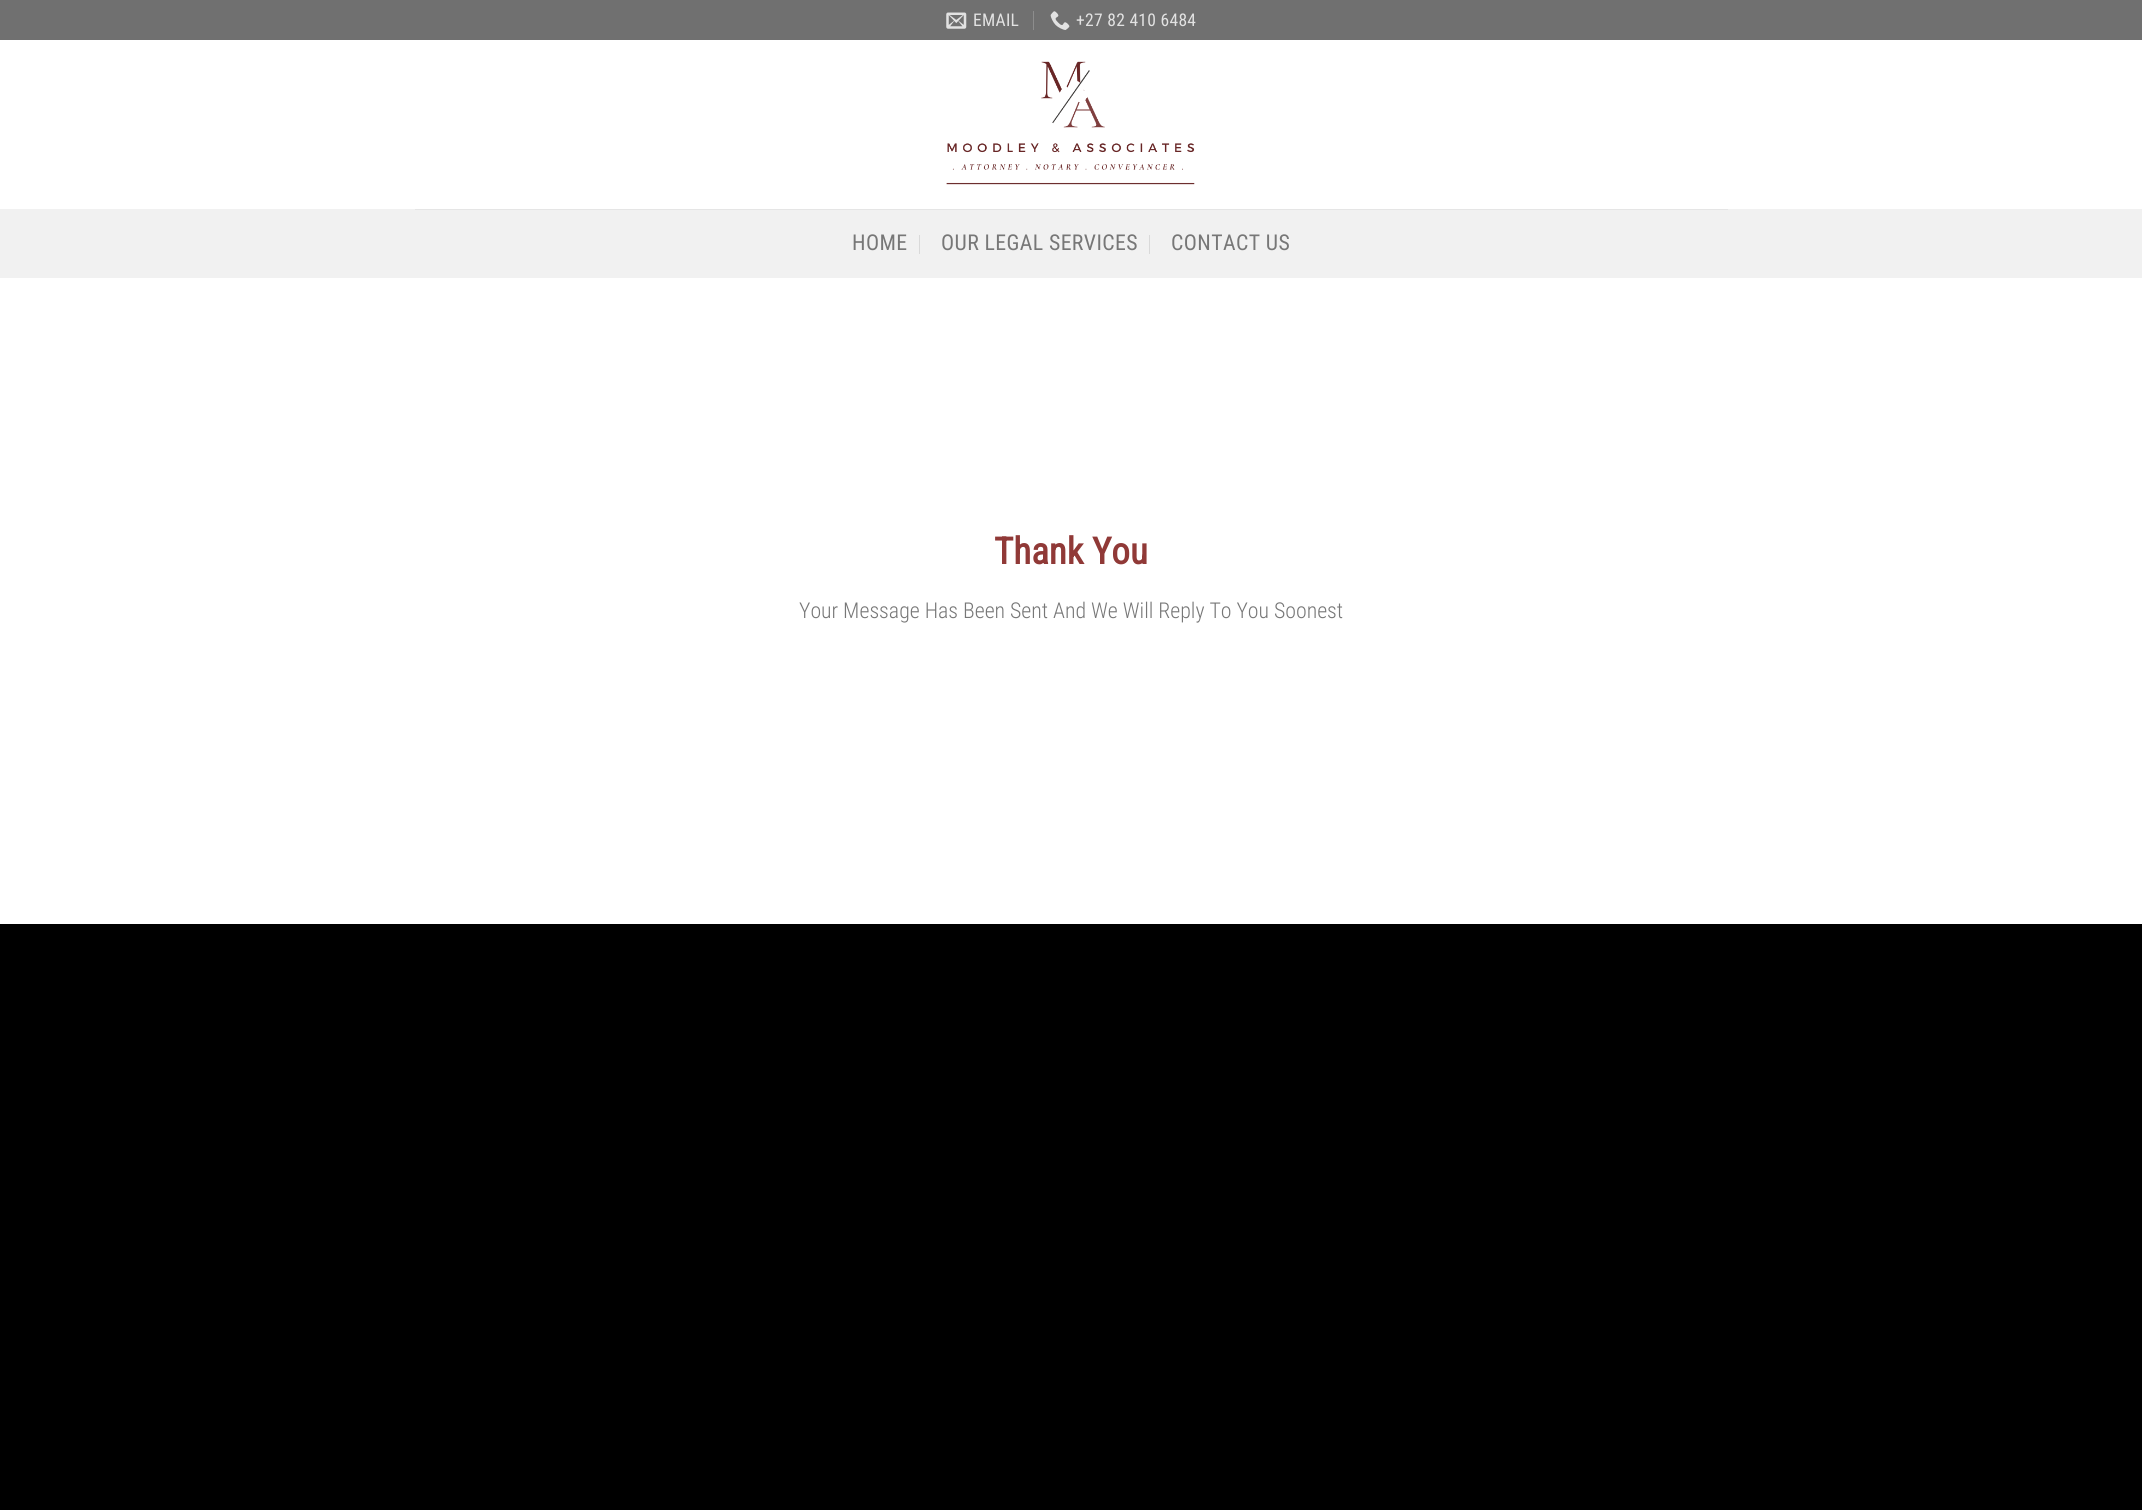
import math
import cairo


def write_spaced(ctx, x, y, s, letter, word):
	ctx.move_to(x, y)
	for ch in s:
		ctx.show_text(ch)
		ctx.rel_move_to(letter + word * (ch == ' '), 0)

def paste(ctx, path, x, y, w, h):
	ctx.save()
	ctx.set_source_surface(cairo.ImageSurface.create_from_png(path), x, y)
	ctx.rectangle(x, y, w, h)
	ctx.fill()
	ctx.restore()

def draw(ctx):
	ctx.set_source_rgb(0, 0, 0)
	ctx.paint()
	ctx.set_source_rgb(1, 1, 1)
	ctx.rectangle(0, 40, 2142, 884)
	ctx.fill()
	ctx.set_source_rgb(0.439, 0.439, 0.439)
	ctx.rectangle(0, 0, 2142, 40)
	ctx.fill()
	paste(ctx, 'media/1.png', 946, 12, 21, 17)
	ctx.select_font_face('Roboto Condensed')
	ctx.set_font_size(17.5)
	ctx.set_source_rgb(0.886, 0.886, 0.886)
	write_spaced(ctx, 973, 26, 'EMAIL', 0.3, 0)
	ctx.set_source_rgb(0.553, 0.553, 0.553)
	ctx.rectangle(1033, 11, 1, 19)
	ctx.fill()
	paste(ctx, 'media/2.png', 1050, 11, 20, 19)
	ctx.set_source_rgb(0.886, 0.886, 0.886)
	write_spaced(ctx, 1076, 26, '+27 82 410 6484', 0.3, 0)
	paste(ctx, 'media/3.png', 946, 61, 249, 124)
	ctx.set_source_rgb(0.945, 0.945, 0.945)
	ctx.rectangle(0, 209, 2142, 69)
	ctx.fill()
	ctx.set_source_rgb(0.898, 0.898, 0.898)
	ctx.rectangle(415, 209, 1313, 1)
	ctx.fill()
	ctx.set_font_size(21.8)
	ctx.set_source_rgb(0.467, 0.467, 0.467)
	write_spaced(ctx, 852, 250, 'HOME', 0.4, 0)
	ctx.set_source_rgb(0.851, 0.851, 0.851)
	ctx.rectangle(919, 235, 1, 19)
	ctx.fill()
	ctx.set_source_rgb(0.467, 0.467, 0.467)
	write_spaced(ctx, 941, 250, 'OUR LEGAL SERVICES', 0.4, 0)
	ctx.set_source_rgb(0.851, 0.851, 0.851)
	ctx.rectangle(1149, 235, 1, 19)
	ctx.fill()
	ctx.set_source_rgb(0.467, 0.467, 0.467)
	write_spaced(ctx, 1171, 250, 'CONTACT US', 0.4, 0)
	ctx.select_font_face('Roboto Condensed', cairo.FONT_SLANT_NORMAL, cairo.FONT_WEIGHT_BOLD)
	ctx.set_font_size(37)
	ctx.set_source_rgb(0.565, 0.224, 0.216)
	ctx.move_to(994, 564)
	ctx.show_text('Thank You')
	ctx.select_font_face('Roboto Condensed Light')
	ctx.set_font_size(21.8)
	ctx.set_source_rgb(0.467, 0.467, 0.467)
	ctx.move_to(799, 618)
	ctx.show_text('Your Message Has Been Sent And We Will Reply To You Soonest')


surface = cairo.ImageSurface(cairo.FORMAT_RGB24, 2142, 1510)
ctx = cairo.Context(surface)
options = cairo.FontOptions()
options.set_hint_metrics(cairo.HINT_METRICS_OFF)
options.set_hint_style(cairo.HINT_STYLE_NONE)
ctx.set_font_options(options)
ctx.set_miter_limit(4)
draw(ctx)
surface.write_to_png('image.png')
